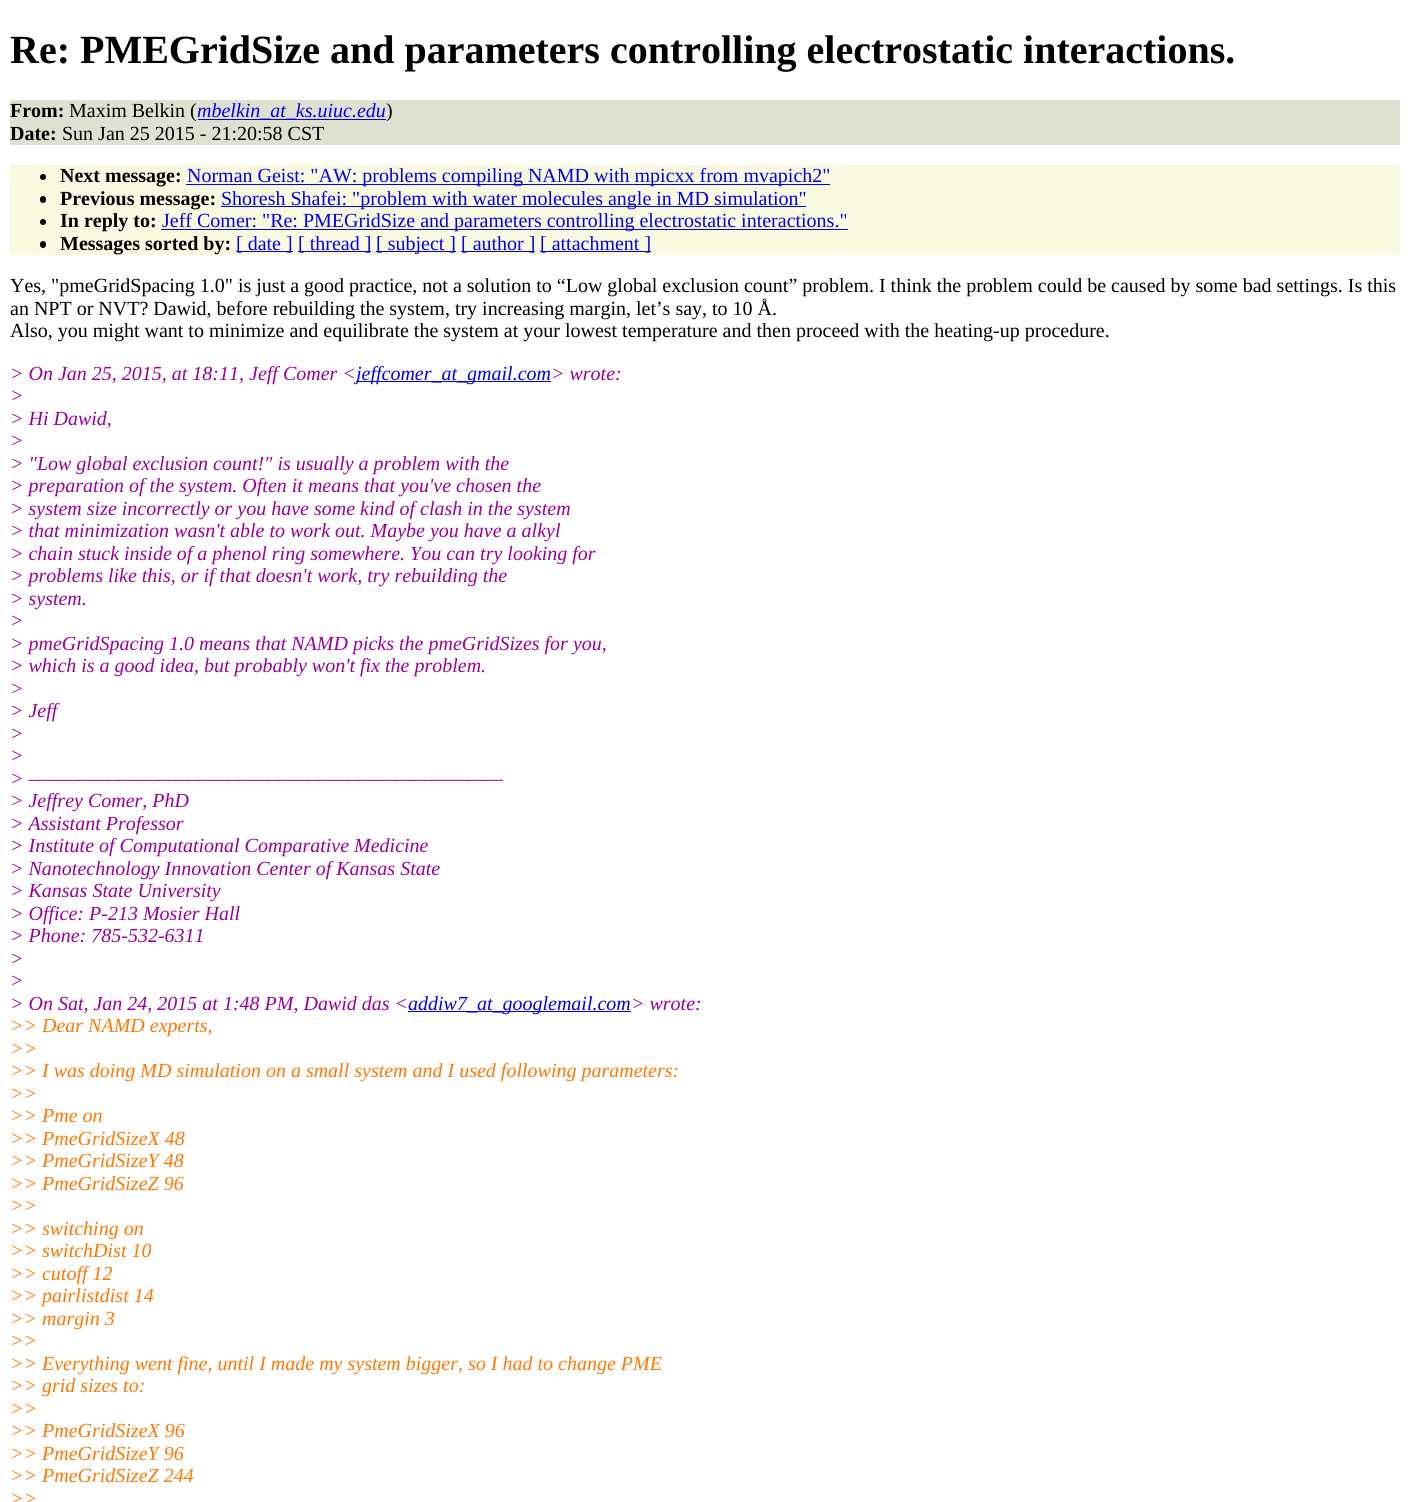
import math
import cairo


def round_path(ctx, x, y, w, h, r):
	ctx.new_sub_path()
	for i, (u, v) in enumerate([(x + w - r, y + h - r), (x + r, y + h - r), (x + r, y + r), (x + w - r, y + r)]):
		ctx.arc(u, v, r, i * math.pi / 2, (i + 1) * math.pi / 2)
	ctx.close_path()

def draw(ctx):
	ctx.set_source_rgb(1, 1, 1)
	ctx.paint()
	ctx.select_font_face('Liberation Serif', cairo.FONT_SLANT_NORMAL, cairo.FONT_WEIGHT_BOLD)
	ctx.set_font_size(40)
	ctx.set_source_rgb(0, 0, 0)
	ctx.move_to(10, 63)
	ctx.show_text('Re: PMEGridSize and parameters controlling electrostatic interactions.')
	ctx.set_source_rgb(0.878, 0.878, 0.816)
	ctx.rectangle(10, 100, 1390, 45)
	ctx.fill()
	ctx.set_font_size(20)
	ctx.set_source_rgb(0, 0, 0)
	ctx.move_to(10, 117)
	ctx.show_text('From:')
	ctx.select_font_face('Liberation Serif')
	ctx.move_to(69, 117)
	ctx.show_text('Maxim Belkin (')
	ctx.set_source_rgb(0, 0, 0.933)
	ctx.rectangle(198, 119, 188, 1)
	ctx.fill()
	ctx.select_font_face('Liberation Serif', cairo.FONT_SLANT_ITALIC)
	ctx.move_to(197, 117)
	ctx.show_text('mbelkin_at_ks.uiuc.edu')
	ctx.select_font_face('Liberation Serif')
	ctx.set_source_rgb(0, 0, 0)
	ctx.move_to(386, 117)
	ctx.show_text(')')
	ctx.select_font_face('Liberation Serif', cairo.FONT_SLANT_NORMAL, cairo.FONT_WEIGHT_BOLD)
	ctx.move_to(10, 140)
	ctx.show_text('Date:')
	ctx.select_font_face('Liberation Serif')
	ctx.move_to(62, 140)
	ctx.show_text('Sun Jan 25 2015 - 21:20:58 CST')
	ctx.set_source_rgb(0.973, 0.973, 0.878)
	ctx.rectangle(10, 165, 1390, 90)
	ctx.fill()
	ctx.set_source_rgb(0, 0, 0)
	ctx.arc(43, 177, 3, 0, 2 * math.pi)
	ctx.fill()
	ctx.select_font_face('Liberation Serif', cairo.FONT_SLANT_NORMAL, cairo.FONT_WEIGHT_BOLD)
	ctx.move_to(60, 182)
	ctx.show_text('Next message:')
	ctx.set_source_rgb(0, 0, 0.933)
	ctx.rectangle(186, 184, 644, 1)
	ctx.fill()
	ctx.select_font_face('Liberation Serif')
	ctx.move_to(187, 182)
	ctx.show_text('Norman Geist: "AW: problems compiling NAMD with mpicxx from mvapich2"')
	ctx.set_source_rgb(0, 0, 0)
	round_path(ctx, 40, 196, 6, 7, 3)
	ctx.fill()
	ctx.select_font_face('Liberation Serif', cairo.FONT_SLANT_NORMAL, cairo.FONT_WEIGHT_BOLD)
	ctx.move_to(60, 205)
	ctx.show_text('Previous message:')
	ctx.set_source_rgb(0, 0, 0.933)
	ctx.rectangle(221, 206, 585, 1)
	ctx.fill()
	ctx.select_font_face('Liberation Serif')
	ctx.move_to(221, 205)
	ctx.show_text('Shoresh Shafei: "problem with water molecules angle in MD simulation"')
	ctx.set_source_rgb(0, 0, 0)
	ctx.new_path()
	ctx.arc(43, 222, 3, 0, 2 * math.pi)
	ctx.fill()
	ctx.select_font_face('Liberation Serif', cairo.FONT_SLANT_NORMAL, cairo.FONT_WEIGHT_BOLD)
	ctx.move_to(60, 227)
	ctx.show_text('In reply to:')
	ctx.set_source_rgb(0, 0, 0.933)
	ctx.rectangle(161, 229, 687, 1)
	ctx.fill()
	ctx.select_font_face('Liberation Serif')
	ctx.move_to(162, 227)
	ctx.show_text('Jeff Comer: "Re: PMEGridSize and parameters controlling electrostatic interactions."')
	ctx.set_source_rgb(0, 0, 0)
	round_path(ctx, 40, 241, 6, 7, 3)
	ctx.fill()
	ctx.select_font_face('Liberation Serif', cairo.FONT_SLANT_NORMAL, cairo.FONT_WEIGHT_BOLD)
	ctx.move_to(60, 250)
	ctx.show_text('Messages sorted by:')
	ctx.set_source_rgb(0, 0, 0.933)
	ctx.rectangle(236, 251, 57, 1)
	ctx.fill()
	ctx.select_font_face('Liberation Serif')
	ctx.move_to(236, 250)
	ctx.show_text('[ date ]')
	ctx.rectangle(298, 251, 73, 1)
	ctx.fill()
	ctx.move_to(298, 250)
	ctx.show_text('[ thread ]')
	ctx.rectangle(376, 251, 80, 1)
	ctx.fill()
	ctx.move_to(376, 250)
	ctx.show_text('[ subject ]')
	ctx.rectangle(461, 251, 74, 1)
	ctx.fill()
	ctx.move_to(461, 250)
	ctx.show_text('[ author ]')
	ctx.rectangle(540, 251, 111, 1)
	ctx.fill()
	ctx.move_to(540, 250)
	ctx.show_text('[ attachment ]')
	ctx.set_source_rgb(0, 0, 0)
	for x, y, s in [
		(10, 292, 'Yes, "pmeGridSpacing 1.0" is just a good practice, not a solution to “Low global exclusion count” problem. I think the problem could be caused by some bad settings. Is this'),
		(10, 315, 'an NPT or NVT? Dawid, before rebuilding the system, try increasing margin, let’s say, to 10 Å.'),
		(10, 337, 'Also, you might want to minimize and equilibrate the system at your lowest temperature and then proceed with the heating-up procedure.'),
	]:
		ctx.move_to(x, y)
		ctx.show_text(s)
	ctx.select_font_face('Liberation Serif', cairo.FONT_SLANT_ITALIC)
	ctx.set_source_rgb(0.6, 0, 0.6)
	ctx.move_to(10, 380)
	ctx.show_text('> On Jan 25, 2015, at 18:11, Jeff Comer <')
	ctx.set_source_rgb(0, 0, 0.933)
	ctx.rectangle(356, 381, 195, 1)
	ctx.fill()
	ctx.move_to(356, 380)
	ctx.show_text('jeffcomer_at_gmail.com')
	ctx.set_source_rgb(0.6, 0, 0.6)
	for x, y, s in [
		(551, 380, '> wrote:'),
		(10, 402, '>'),
		(10, 425, '> Hi Dawid,'),
		(10, 447, '>'),
		(10, 470, '> "Low global exclusion count!" is usually a problem with the'),
		(10, 492, '> preparation of the system. Often it means that you\'ve chosen the'),
		(10, 515, '> system size incorrectly or you have some kind of clash in the system'),
		(10, 537, '> that minimization wasn\'t able to work out. Maybe you have a alkyl'),
		(10, 560, '> chain stuck inside of a phenol ring somewhere. You can try looking for'),
		(10, 582, '> problems like this, or if that doesn\'t work, try rebuilding the'),
		(10, 605, '> system.'),
		(10, 627, '>'),
		(10, 650, '> pmeGridSpacing 1.0 means that NAMD picks the pmeGridSizes for you,'),
		(10, 672, '> which is a good idea, but probably won\'t fix the problem.'),
		(10, 695, '>'),
		(10, 717, '> Jeff'),
		(10, 740, '>'),
		(10, 762, '>'),
		(10, 785, '> –––––––––––––––––––––––––––––––––––———————'),
		(10, 807, '> Jeffrey Comer, PhD'),
		(10, 830, '> Assistant Professor'),
		(10, 852, '> Institute of Computational Comparative Medicine'),
		(10, 875, '> Nanotechnology Innovation Center of Kansas State'),
		(10, 897, '> Kansas State University'),
		(10, 920, '> Office: P-213 Mosier Hall'),
		(10, 942, '> Phone: 785-532-6311'),
		(10, 965, '>'),
		(10, 987, '>'),
		(10, 1010, '> On Sat, Jan 24, 2015 at 1:48 PM, Dawid das <'),
	]:
		ctx.move_to(x, y)
		ctx.show_text(s)
	ctx.set_source_rgb(0, 0, 0.933)
	ctx.rectangle(408, 1011, 223, 1)
	ctx.fill()
	ctx.move_to(408, 1010)
	ctx.show_text('addiw7_at_googlemail.com')
	ctx.set_source_rgb(0.6, 0, 0.6)
	ctx.move_to(631, 1010)
	ctx.show_text('> wrote:')
	ctx.set_source_rgb(1, 0.467, 0)
	for x, y, s in [
		(10, 1032, '>> Dear NAMD experts,'),
		(10, 1055, '>>'),
		(10, 1077, '>> I was doing MD simulation on a small system and I used following parameters:'),
		(10, 1100, '>>'),
		(10, 1122, '>> Pme on'),
		(10, 1145, '>> PmeGridSizeX 48'),
		(10, 1167, '>> PmeGridSizeY 48'),
		(10, 1190, '>> PmeGridSizeZ 96'),
		(10, 1212, '>>'),
		(10, 1235, '>> switching on'),
		(10, 1257, '>> switchDist 10'),
		(10, 1280, '>> cutoff 12'),
		(10, 1302, '>> pairlistdist 14'),
		(10, 1325, '>> margin 3'),
		(10, 1347, '>>'),
		(10, 1370, '>> Everything went fine, until I made my system bigger, so I had to change PME'),
		(10, 1392, '>> grid sizes to:'),
		(10, 1415, '>>'),
		(10, 1437, '>> PmeGridSizeX 96'),
		(10, 1460, '>> PmeGridSizeY 96'),
		(10, 1482, '>> PmeGridSizeZ 244'),
		(10, 1505, '>>'),
	]:
		ctx.move_to(x, y)
		ctx.show_text(s)


surface = cairo.ImageSurface(cairo.FORMAT_RGB24, 1410, 1502)
ctx = cairo.Context(surface)
options = cairo.FontOptions()
options.set_hint_metrics(cairo.HINT_METRICS_OFF)
options.set_hint_style(cairo.HINT_STYLE_NONE)
ctx.set_font_options(options)
ctx.set_miter_limit(4)
draw(ctx)
surface.write_to_png('image.png')
